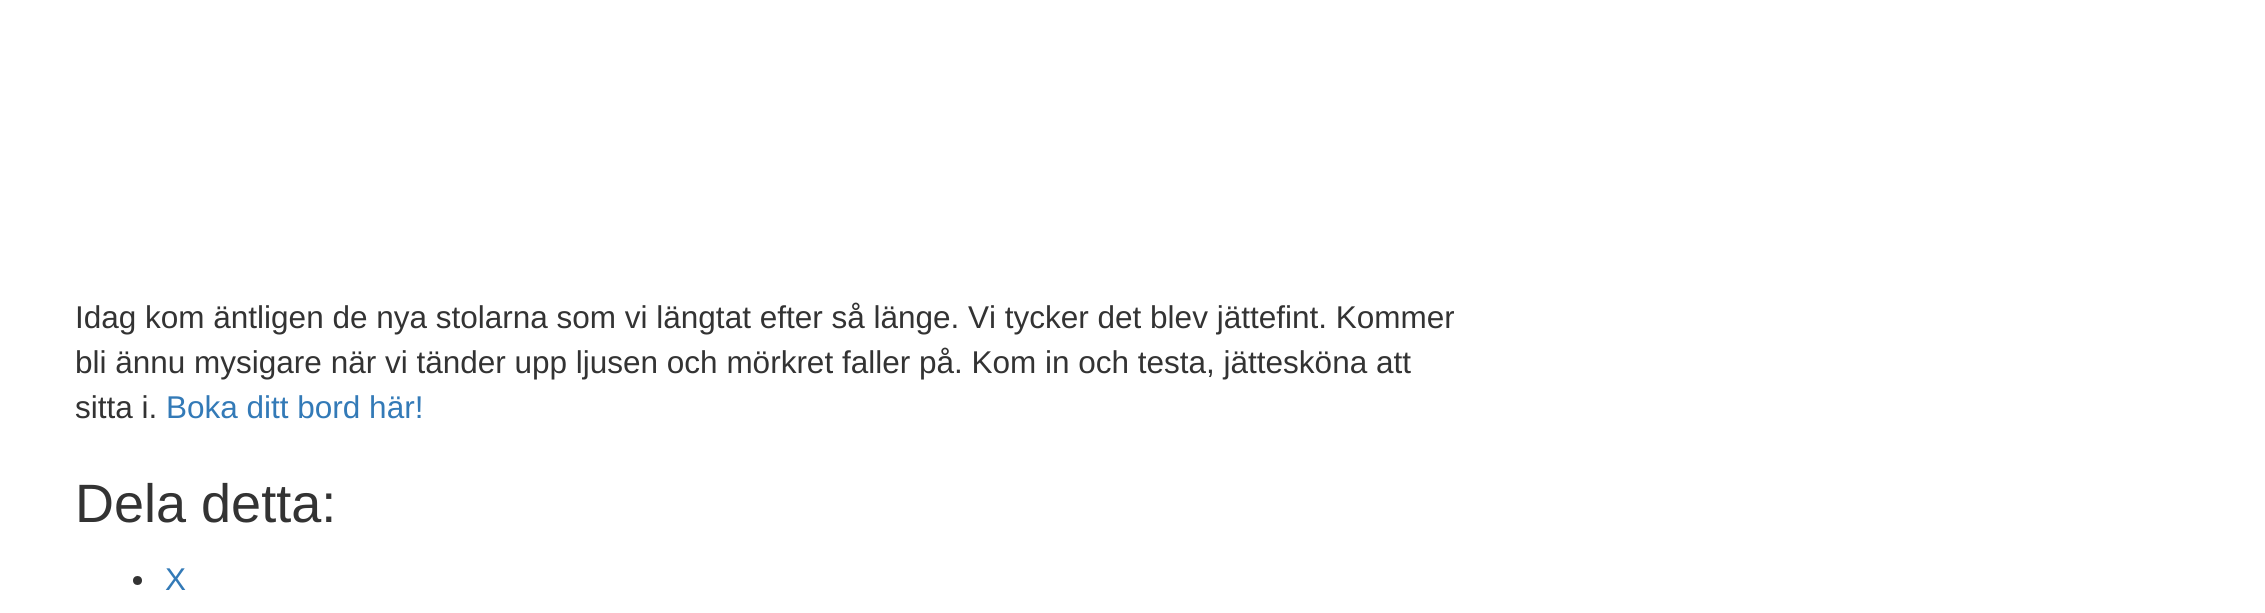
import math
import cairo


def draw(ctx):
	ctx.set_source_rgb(1, 1, 1)
	ctx.paint()
	ctx.select_font_face('Liberation Sans')
	ctx.set_font_size(31.5)
	ctx.set_source_rgb(0.2, 0.2, 0.2)
	for x, y, s in [
		(75, 328, 'Idag kom äntligen de nya stolarna som vi längtat efter så länge. Vi tycker det blev jättefint. Kommer'),
		(75, 373, 'bli ännu mysigare när vi tänder upp ljusen och mörkret faller på. Kom in och testa, jättesköna att'),
		(75, 418, 'sitta i.'),
	]:
		ctx.move_to(x, y)
		ctx.show_text(s)
	ctx.set_source_rgb(0.2, 0.478, 0.718)
	ctx.move_to(166, 418)
	ctx.show_text('Boka ditt bord här!')
	ctx.set_font_size(54)
	ctx.set_source_rgb(0.2, 0.2, 0.2)
	ctx.move_to(75, 522)
	ctx.show_text('Dela detta:')
	ctx.new_path()
	ctx.arc(137.5, 580.5, 4.5, 0, 2 * math.pi)
	ctx.fill()
	ctx.set_font_size(31.5)
	ctx.set_source_rgb(0.2, 0.478, 0.718)
	ctx.move_to(165, 590)
	ctx.show_text('X')


surface = cairo.ImageSurface(cairo.FORMAT_RGB24, 2265, 613)
ctx = cairo.Context(surface)
options = cairo.FontOptions()
options.set_hint_metrics(cairo.HINT_METRICS_OFF)
options.set_hint_style(cairo.HINT_STYLE_NONE)
ctx.set_font_options(options)
ctx.set_miter_limit(4)
draw(ctx)
surface.write_to_png('image.png')
